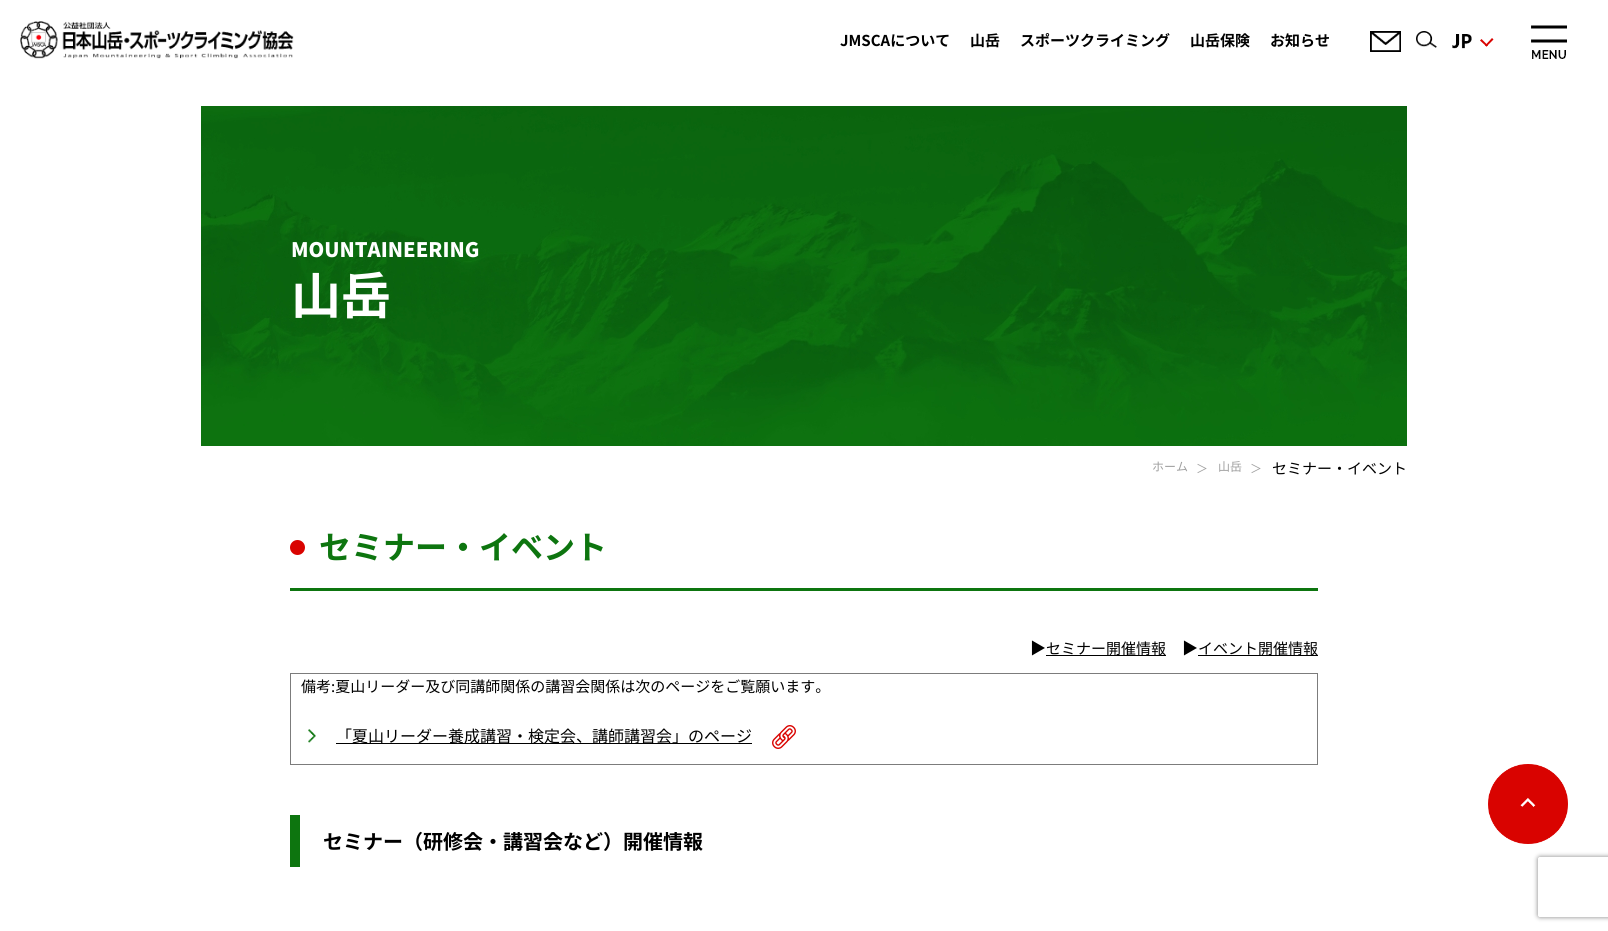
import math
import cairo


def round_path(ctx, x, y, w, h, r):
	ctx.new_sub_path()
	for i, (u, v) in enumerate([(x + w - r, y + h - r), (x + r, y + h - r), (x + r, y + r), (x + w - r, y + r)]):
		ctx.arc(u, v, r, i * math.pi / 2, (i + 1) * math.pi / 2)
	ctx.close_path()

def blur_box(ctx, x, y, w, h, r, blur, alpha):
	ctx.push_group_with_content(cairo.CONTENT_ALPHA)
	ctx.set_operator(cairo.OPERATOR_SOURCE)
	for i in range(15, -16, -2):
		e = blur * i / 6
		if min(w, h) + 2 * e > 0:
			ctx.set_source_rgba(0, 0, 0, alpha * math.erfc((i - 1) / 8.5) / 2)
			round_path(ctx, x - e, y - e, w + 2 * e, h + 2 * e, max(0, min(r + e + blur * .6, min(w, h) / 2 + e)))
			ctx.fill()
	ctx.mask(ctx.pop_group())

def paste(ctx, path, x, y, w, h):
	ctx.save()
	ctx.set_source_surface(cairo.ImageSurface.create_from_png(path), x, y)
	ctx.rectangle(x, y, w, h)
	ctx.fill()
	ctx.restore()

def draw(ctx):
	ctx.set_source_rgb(1, 1, 1)
	ctx.paint()
	paste(ctx, 'media/1.png', 20, 21, 274, 38)
	ctx.select_font_face('Noto Sans CJK JP', cairo.FONT_SLANT_NORMAL, cairo.FONT_WEIGHT_BOLD)
	ctx.set_font_size(15)
	ctx.set_source_rgb(0, 0, 0)
	for x, y, s in [
		(840, 46, 'JMSCAについて'),
		(970, 46, '山岳'),
		(1020, 46, 'スポーツクライミング'),
		(1190, 46, '山岳保険'),
		(1270, 46, 'お知らせ'),
	]:
		ctx.move_to(x, y)
		ctx.show_text(s)
	paste(ctx, 'media/2.png', 1370, 31, 31, 21)
	paste(ctx, 'media/3.png', 1416, 31, 21, 17)
	paste(ctx, 'media/4.png', 1452, 34, 20, 15)
	ctx.set_source_rgb(0.851, 0.012, 0)
	ctx.new_path()
	ctx.move_to(1493.5, 39.5)
	ctx.line_to(1486.5, 46.5)
	ctx.line_to(1485, 45.5)
	ctx.line_to(1492, 38)
	ctx.close_path()
	ctx.fill()
	ctx.new_path()
	ctx.move_to(1488, 45.5)
	ctx.line_to(1486.5, 46.5)
	ctx.line_to(1480, 40.5)
	ctx.line_to(1481.5, 39)
	ctx.close_path()
	ctx.fill()
	paste(ctx, 'media/5.png', 1531, 25, 36, 34)
	paste(ctx, 'media/6.png', 201, 106, 1206, 340)
	ctx.select_font_face('Noto Sans CJK JP Black')
	ctx.set_font_size(20)
	ctx.set_source_rgb(1, 1, 1)
	ctx.move_to(291, 257)
	ctx.show_text('MOUNTAINEERING')
	ctx.select_font_face('Noto Sans CJK JP', cairo.FONT_SLANT_NORMAL, cairo.FONT_WEIGHT_BOLD)
	ctx.set_font_size(50)
	ctx.move_to(291, 314)
	ctx.show_text('山岳')
	ctx.select_font_face('Noto Sans CJK JP')
	ctx.set_font_size(12)
	ctx.set_source_rgb(0.624, 0.624, 0.624)
	for x, y, s in [
		(1152, 471, 'ホーム'),
		(1196, 473, '＞'),
		(1218, 471, '山岳'),
		(1250, 473, '＞'),
	]:
		ctx.move_to(x, y)
		ctx.show_text(s)
	ctx.set_font_size(15)
	ctx.set_source_rgb(0, 0, 0)
	ctx.move_to(1272, 474)
	ctx.show_text('セミナー・イベント')
	ctx.set_source_rgb(0.051, 0.459, 0.059)
	ctx.rectangle(290, 588, 1028, 3)
	ctx.fill()
	ctx.set_source_rgb(0.851, 0.012, 0)
	ctx.arc(297.5, 547.5, 7.5, 0, 2 * math.pi)
	ctx.fill()
	ctx.select_font_face('Noto Sans CJK JP', cairo.FONT_SLANT_NORMAL, cairo.FONT_WEIGHT_BOLD)
	ctx.set_font_size(32)
	ctx.set_source_rgb(0.051, 0.459, 0.059)
	ctx.move_to(319, 559)
	ctx.show_text('セミナー・イベント')
	ctx.select_font_face('Noto Sans CJK JP')
	ctx.set_font_size(16)
	ctx.set_source_rgb(0, 0, 0)
	ctx.move_to(1030, 654)
	ctx.show_text('▶')
	ctx.rectangle(1046, 655, 120, 1)
	ctx.fill()
	ctx.set_font_size(15)
	ctx.move_to(1046, 654)
	ctx.show_text('セミナー開催情報')
	ctx.set_font_size(16)
	ctx.move_to(1182, 654)
	ctx.show_text('▶')
	ctx.rectangle(1198, 655, 120, 1)
	ctx.fill()
	ctx.set_font_size(15)
	ctx.move_to(1198, 654)
	ctx.show_text('イベント開催情報')
	ctx.set_source_rgb(0.486, 0.486, 0.486)
	ctx.rectangle(290, 673, 1028, 1)
	ctx.rectangle(1317, 673, 1, 92)
	ctx.rectangle(290, 764, 1028, 1)
	ctx.rectangle(290, 673, 1, 92)
	ctx.fill()
	ctx.set_source_rgb(0, 0, 0)
	ctx.move_to(301, 692)
	ctx.show_text('備考:夏山リーダー及び同講師関係の講習会関係は次のページをご覧願います。')
	paste(ctx, 'media/7.png', 308, 729, 8, 14)
	ctx.rectangle(336, 743, 416, 1)
	ctx.fill()
	ctx.set_font_size(16)
	ctx.move_to(336, 742)
	ctx.show_text('「夏山リーダー養成講習・検定会、講師講習会」のページ')
	paste(ctx, 'media/8.png', 772, 725, 24, 24)
	ctx.set_source_rgb(0.051, 0.459, 0.059)
	ctx.rectangle(290, 815, 10, 52)
	ctx.fill()
	ctx.select_font_face('Noto Sans CJK JP', cairo.FONT_SLANT_NORMAL, cairo.FONT_WEIGHT_BOLD)
	ctx.set_font_size(20)
	ctx.set_source_rgb(0, 0, 0)
	ctx.move_to(323, 849)
	ctx.show_text('セミナー（研修会・講習会など）開催情報')
	paste(ctx, 'media/9.png', 1488, 764, 80, 80)
	ctx.save()
	ctx.set_fill_rule(cairo.FILL_RULE_EVEN_ODD)
	ctx.new_path()
	ctx.move_to(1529, 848)
	ctx.line_to(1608, 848)
	ctx.line_to(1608, 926)
	ctx.line_to(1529, 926)
	ctx.close_path()
	ctx.move_to(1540, 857)
	ctx.line_to(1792, 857)
	ctx.curve_to(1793, 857, 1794, 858, 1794, 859)
	ctx.line_to(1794, 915)
	ctx.curve_to(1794, 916, 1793, 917, 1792, 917)
	ctx.line_to(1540, 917)
	ctx.curve_to(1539, 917, 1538, 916, 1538, 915)
	ctx.line_to(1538, 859)
	ctx.curve_to(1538, 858, 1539, 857, 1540, 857)
	ctx.close_path()
	ctx.clip()
	ctx.set_source_rgb(0.502, 0.502, 0.502)
	blur_box(ctx, 1538, 857, 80, 60, 2, 2.5, 1)
	ctx.restore()


surface = cairo.ImageSurface(cairo.FORMAT_RGB24, 1608, 931)
ctx = cairo.Context(surface)
options = cairo.FontOptions()
options.set_hint_metrics(cairo.HINT_METRICS_OFF)
options.set_hint_style(cairo.HINT_STYLE_NONE)
ctx.set_font_options(options)
ctx.set_miter_limit(4)
draw(ctx)
surface.write_to_png('image.png')
